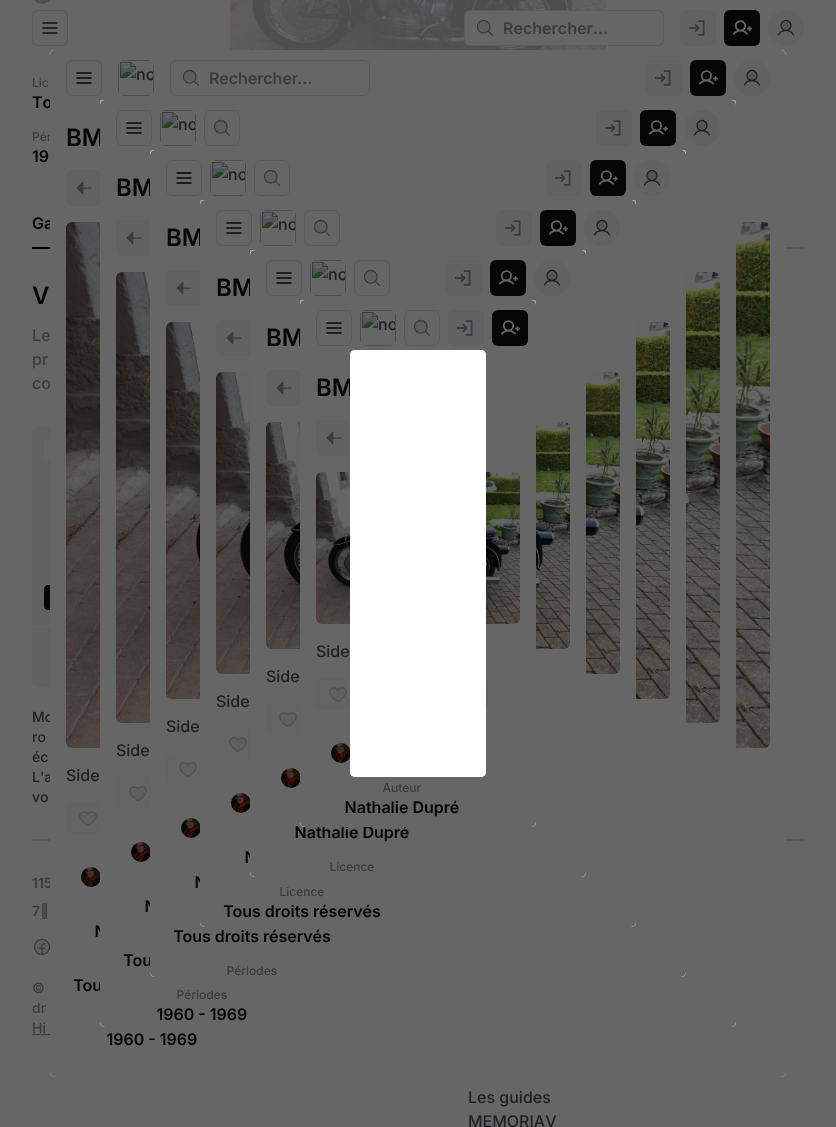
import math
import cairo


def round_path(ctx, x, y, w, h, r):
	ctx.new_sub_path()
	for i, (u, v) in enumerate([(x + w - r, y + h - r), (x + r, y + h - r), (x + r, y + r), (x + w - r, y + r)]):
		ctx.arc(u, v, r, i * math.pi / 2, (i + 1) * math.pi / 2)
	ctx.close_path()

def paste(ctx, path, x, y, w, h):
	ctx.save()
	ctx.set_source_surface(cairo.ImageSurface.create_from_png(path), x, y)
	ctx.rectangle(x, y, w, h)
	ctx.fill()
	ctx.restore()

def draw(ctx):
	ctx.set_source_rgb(0.4, 0.4, 0.4)
	ctx.paint()
	paste(ctx, 'media/6.png', 230, 0, 376, 50)
	ctx.set_source_rgb(0.384, 0.384, 0.384)
	round_path(ctx, 32, -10, 20, 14, 10)
	ctx.fill()
	paste(ctx, 'media/7.png', 34, 0, 16, 4)
	ctx.set_source_rgba(0.4, 0.4, 0.4, 0.75)
	ctx.rectangle(34, 0, 572, 50)
	ctx.fill()
	round_path(ctx, 32.5, 10.5, 35, 35, 5.5)
	ctx.set_source_rgb(0.357, 0.357, 0.361)
	ctx.set_line_width(1)
	ctx.stroke()
	paste(ctx, 'media/1.png', 42, 22, 16, 12)
	ctx.set_source_rgb(0.4, 0.4, 0.4)
	round_path(ctx, 464.5, 10.5, 199, 35, 5.5)
	ctx.fill_preserve()
	ctx.set_source_rgb(0.357, 0.357, 0.361)
	ctx.stroke()
	paste(ctx, 'media/2.png', 476, 19, 18, 17)
	ctx.select_font_face('Inter SemiBold')
	ctx.set_font_size(16)
	ctx.set_source_rgb(0.231, 0.231, 0.247)
	ctx.move_to(503, 34)
	ctx.show_text('Rechercher…')
	ctx.set_source_rgb(0.384, 0.384, 0.384)
	round_path(ctx, 680, 10, 36, 36, 6)
	ctx.fill()
	paste(ctx, 'media/3.png', 689, 20, 16, 16)
	ctx.set_source_rgb(0.027, 0.027, 0.027)
	round_path(ctx, 724, 10, 36, 36, 6)
	ctx.fill()
	paste(ctx, 'media/4.png', 733, 20, 19, 15)
	ctx.set_source_rgb(0.384, 0.384, 0.384)
	ctx.arc(786, 28, 18, 0, 2 * math.pi)
	ctx.fill()
	paste(ctx, 'media/5.png', 777, 19, 18, 17)
	ctx.select_font_face('Inter Medium')
	ctx.set_font_size(12)
	ctx.set_source_rgb(0.231, 0.231, 0.247)
	ctx.move_to(32, 87)
	ctx.show_text('Lic')
	ctx.select_font_face('Inter SemiBold')
	ctx.set_font_size(16)
	ctx.set_source_rgb(0.027, 0.027, 0.027)
	ctx.move_to(32, 108)
	ctx.show_text('To')
	ctx.select_font_face('Inter Medium')
	ctx.set_font_size(12)
	ctx.set_source_rgb(0.231, 0.231, 0.247)
	ctx.move_to(32, 141)
	ctx.show_text('Pér')
	ctx.select_font_face('Inter SemiBold')
	ctx.set_font_size(16)
	ctx.set_source_rgb(0.027, 0.027, 0.027)
	ctx.move_to(32, 162)
	ctx.show_text('19')
	ctx.set_source_rgb(0.357, 0.357, 0.361)
	ctx.rectangle(786, 247, 18, 2)
	ctx.fill()
	ctx.set_source_rgb(0.027, 0.027, 0.027)
	ctx.rectangle(32, 247, 18, 2)
	ctx.fill()
	ctx.move_to(32, 229)
	ctx.show_text('Ga')
	ctx.set_font_size(24)
	ctx.move_to(32, 304)
	ctx.show_text('V')
	ctx.select_font_face('Inter Medium')
	ctx.set_font_size(16)
	ctx.set_source_rgb(0.231, 0.231, 0.247)
	for x, y, s in [
		(32, 341, 'Le'),
		(32, 365, 'pr'),
		(32, 389, 'co'),
	]:
		ctx.move_to(x, y)
		ctx.show_text(s)
	ctx.set_source_rgb(0.384, 0.384, 0.384)
	ctx.new_path()
	ctx.move_to(38, 427)
	ctx.line_to(273, 427)
	ctx.curve_to(276.5, 427, 279, 429.5, 279, 433)
	ctx.line_to(279, 624)
	ctx.line_to(32, 624)
	ctx.line_to(32, 433)
	ctx.curve_to(32, 429.5, 34.5, 427, 38, 427)
	ctx.close_path()
	ctx.fill()
	ctx.set_source_rgb(0.4, 0.4, 0.4)
	round_path(ctx, 44, 439, 158, 20, 4)
	ctx.fill()
	ctx.set_source_rgb(0.027, 0.027, 0.027)
	round_path(ctx, 44, 585, 130, 25, 4)
	ctx.fill()
	ctx.set_source_rgb(0.384, 0.384, 0.384)
	ctx.new_path()
	ctx.move_to(32, 628)
	ctx.line_to(91, 628)
	ctx.line_to(91, 687)
	ctx.line_to(38, 687)
	ctx.curve_to(34.5, 687, 32, 684.5, 32, 681)
	ctx.close_path()
	ctx.fill()
	ctx.set_font_size(14)
	ctx.set_source_rgb(0.125, 0.125, 0.137)
	for x, y, s in [
		(32, 722, 'Mo'),
		(32, 742, 'ro'),
		(32, 762, 'éc'),
		(32, 782, 'L\'a'),
		(32, 802, 'vo'),
	]:
		ctx.move_to(x, y)
		ctx.show_text(s)
	ctx.set_source_rgb(0.357, 0.357, 0.361)
	ctx.rectangle(32, 839, 772, 2)
	ctx.fill()
	ctx.select_font_face('Inter SemiBold')
	ctx.set_source_rgb(0.231, 0.231, 0.247)
	ctx.move_to(32, 888)
	ctx.show_text('115')
	ctx.move_to(32, 916)
	ctx.show_text('7 3')
	paste(ctx, 'media/8.png', 33, 938, 17, 18)
	ctx.select_font_face('Inter Medium')
	for x, y, s in [
		(32, 993, '©'),
		(32, 1013, 'dr'),
		(32, 1033, 'Hi'),
	]:
		ctx.move_to(x, y)
		ctx.show_text(s)
	ctx.rectangle(32, 1034, 18, 1)
	ctx.fill()
	ctx.set_font_size(16)
	ctx.set_source_rgb(0.125, 0.125, 0.137)
	ctx.move_to(468, 1103)
	ctx.show_text('Les guides')
	ctx.move_to(468, 1127)
	ctx.show_text('MEMORIAV')
	paste(ctx, 'media/9.png', 50, 50, 736, 1027)


surface = cairo.ImageSurface(cairo.FORMAT_RGB24, 836, 1127)
ctx = cairo.Context(surface)
options = cairo.FontOptions()
options.set_hint_metrics(cairo.HINT_METRICS_OFF)
options.set_hint_style(cairo.HINT_STYLE_NONE)
ctx.set_font_options(options)
ctx.set_miter_limit(4)
draw(ctx)
surface.write_to_png('image.png')
